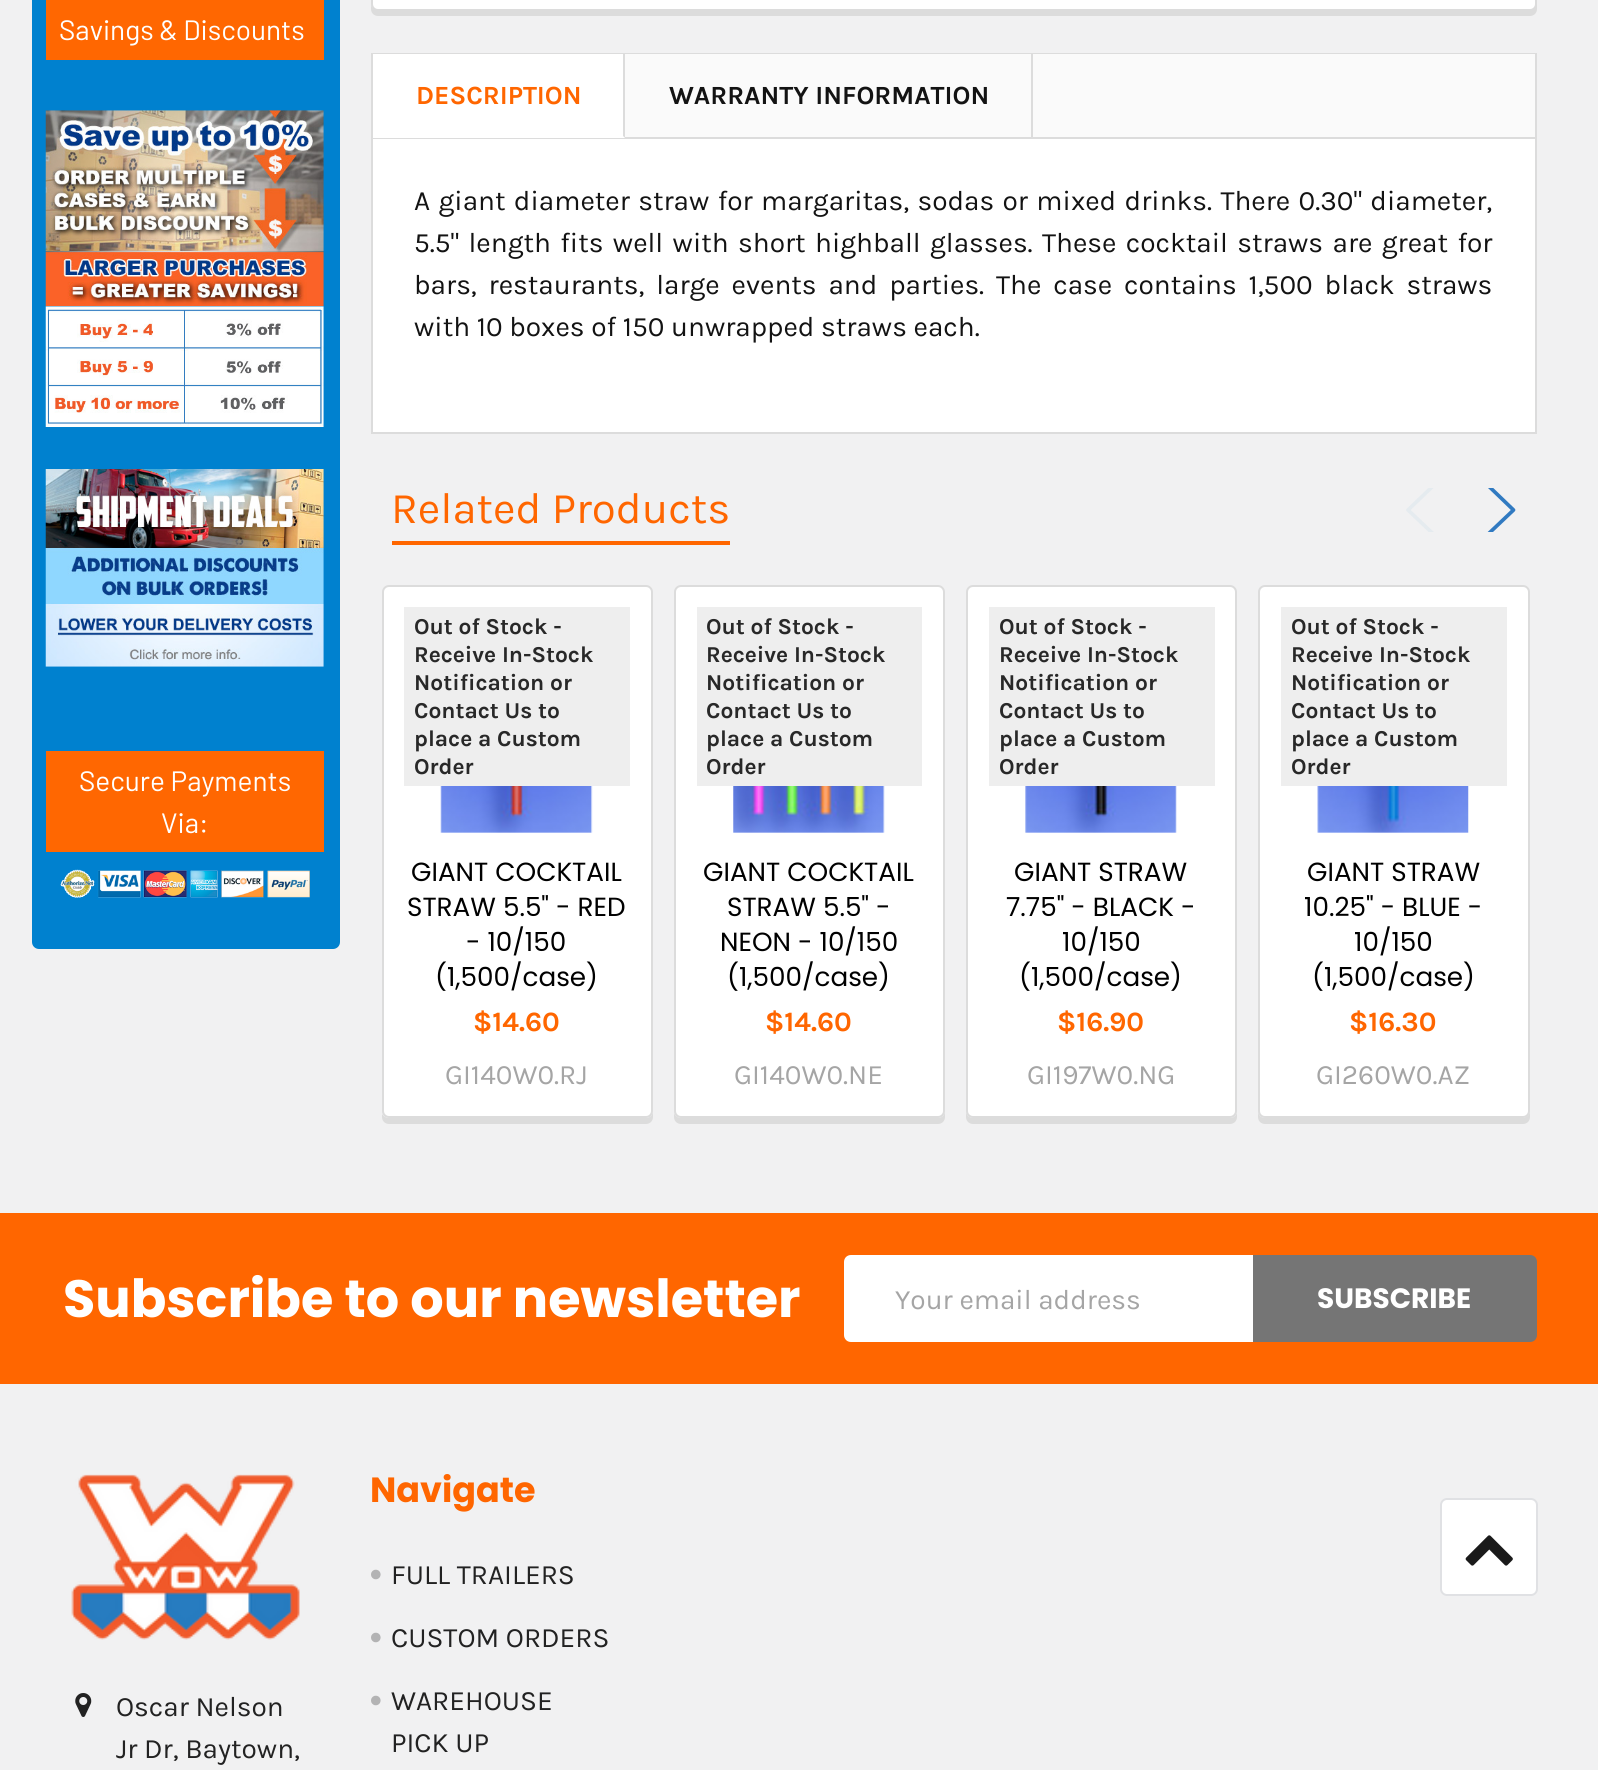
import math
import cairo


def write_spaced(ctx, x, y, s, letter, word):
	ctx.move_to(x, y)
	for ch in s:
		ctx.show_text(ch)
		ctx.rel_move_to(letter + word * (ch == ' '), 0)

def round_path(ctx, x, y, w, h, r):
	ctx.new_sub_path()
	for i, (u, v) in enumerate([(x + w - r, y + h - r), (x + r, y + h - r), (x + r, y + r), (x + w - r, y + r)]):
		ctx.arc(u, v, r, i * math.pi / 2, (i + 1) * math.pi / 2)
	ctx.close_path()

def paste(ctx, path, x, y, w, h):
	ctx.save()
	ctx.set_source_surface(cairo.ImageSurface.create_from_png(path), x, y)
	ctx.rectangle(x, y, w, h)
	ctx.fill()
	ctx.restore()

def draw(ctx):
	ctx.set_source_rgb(0.945, 0.945, 0.949)
	ctx.paint()
	ctx.set_source_rgb(0, 0.506, 0.812)
	round_path(ctx, 32, -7, 308, 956, 7)
	ctx.fill()
	ctx.set_source_rgb(1, 0.404, 0.004)
	ctx.rectangle(46, 0, 278, 60)
	ctx.fill()
	ctx.select_font_face('Barlow')
	ctx.set_font_size(28)
	ctx.set_source_rgb(1, 1, 1)
	ctx.move_to(59, 40)
	ctx.show_text('Savings & Discounts')
	paste(ctx, 'media/1.png', 45, 110, 279, 197)
	paste(ctx, 'media/2.png', 45, 306, 279, 121)
	paste(ctx, 'media/3.png', 45, 469, 279, 198)
	ctx.set_source_rgb(1, 0.404, 0.004)
	ctx.rectangle(46, 751, 278, 101)
	ctx.fill()
	ctx.set_source_rgb(1, 1, 1)
	ctx.move_to(79, 791)
	ctx.show_text('Secure Payments')
	ctx.move_to(161, 833)
	ctx.show_text('Via:')
	paste(ctx, 'media/4.png', 60, 869, 250, 29)
	ctx.set_source_rgb(0.863, 0.863, 0.863)
	ctx.new_path()
	ctx.move_to(371, 4)
	ctx.line_to(371, 9)
	ctx.curve_to(371, 13, 374, 16, 378, 16)
	ctx.line_to(1530, 16)
	ctx.curve_to(1534, 16, 1537, 13, 1537, 9)
	ctx.line_to(1537, -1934)
	ctx.line_to(1536, -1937)
	ctx.line_to(1536, 4)
	ctx.curve_to(1536, 7, 1533, 10, 1530, 10)
	ctx.line_to(378, 10)
	ctx.curve_to(374, 10, 371, 7, 371, 4)
	ctx.close_path()
	ctx.fill()
	ctx.set_source_rgb(1, 1, 1)
	round_path(ctx, 372, -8, 1164, 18, 6)
	ctx.fill_preserve()
	ctx.set_source_rgb(0.863, 0.863, 0.863)
	ctx.stroke()
	ctx.set_source_rgb(1, 1, 1)
	ctx.rectangle(373, 139, 1162, 293)
	ctx.fill()
	ctx.rectangle(372, 54, 1164, 379)
	ctx.set_source_rgb(0.863, 0.863, 0.863)
	ctx.stroke()
	ctx.set_source_rgb(0.98, 0.98, 0.98)
	ctx.rectangle(625, 54, 910, 83)
	ctx.fill()
	ctx.set_source_rgb(0.863, 0.863, 0.863)
	ctx.rectangle(373, 137, 1162, 2)
	ctx.fill()
	ctx.set_source_rgb(1, 1, 1)
	ctx.rectangle(373, 54, 250, 84)
	ctx.fill()
	ctx.set_source_rgb(0.863, 0.863, 0.863)
	ctx.rectangle(623, 54, 2, 84)
	ctx.fill()
	ctx.set_source_rgb(1, 1, 1)
	ctx.new_path()
	ctx.move_to(625, 138)
	ctx.line_to(373, 138)
	ctx.line_to(374, 136)
	ctx.line_to(623, 136)
	ctx.close_path()
	ctx.fill()
	ctx.select_font_face('Karla', cairo.FONT_SLANT_NORMAL, cairo.FONT_WEIGHT_BOLD)
	ctx.set_font_size(26.25)
	ctx.set_source_rgb(1, 0.4, 0)
	ctx.move_to(416, 104)
	ctx.show_text('DESCRIPTION')
	ctx.set_source_rgb(0.863, 0.863, 0.863)
	ctx.rectangle(1031, 54, 2, 83)
	ctx.fill()
	ctx.set_source_rgb(0.075, 0.075, 0.075)
	ctx.move_to(669, 104)
	ctx.show_text('WARRANTY INFORMATION')
	ctx.select_font_face('Karla')
	ctx.set_font_size(28)
	write_spaced(ctx, 414, 210, 'A giant diameter straw for margaritas, sodas or mixed drinks. There 0.30" diameter,', 0, 1.75)
	write_spaced(ctx, 414, 252, '5.5" length fits well with short highball glasses. These cocktail straws are great for', 0, 2.75)
	write_spaced(ctx, 414, 294, 'bars, restaurants, large events and parties. The case contains 1,500 black straws', 0, 5.25)
	ctx.move_to(414, 336)
	ctx.show_text('with 10 boxes of 150 unwrapped straws each.')
	ctx.set_source_rgb(1, 0.4, 0)
	ctx.rectangle(392, 541, 338, 4)
	ctx.fill()
	ctx.set_font_size(43.75)
	ctx.move_to(391, 523)
	ctx.show_text('Related Products')
	ctx.save()
	ctx.rectangle(1405, 488, 46, 44)
	ctx.clip()
	ctx.new_path()
	ctx.move_to(1447, 472.5)
	ctx.line_to(1408, 510)
	ctx.line_to(1447, 547)
	ctx.set_source_rgb(0.898, 0.918, 0.937)
	ctx.set_line_width(3.7)
	ctx.set_line_cap(cairo.LINE_CAP_ROUND)
	ctx.set_line_join(cairo.LINE_JOIN_ROUND)
	ctx.stroke()
	ctx.restore()
	ctx.save()
	ctx.rectangle(1472, 488, 44, 44)
	ctx.clip()
	ctx.new_path()
	ctx.move_to(1474.5, 472.5)
	ctx.line_to(1513.5, 510)
	ctx.line_to(1474.5, 547)
	ctx.set_source_rgb(0.192, 0.478, 0.757)
	ctx.set_line_width(3.7)
	ctx.set_line_cap(cairo.LINE_CAP_ROUND)
	ctx.set_line_join(cairo.LINE_JOIN_ROUND)
	ctx.stroke()
	ctx.restore()
	ctx.set_source_rgb(0.863, 0.863, 0.863)
	ctx.new_path()
	ctx.move_to(382, 1114)
	ctx.line_to(382, 1117)
	ctx.curve_to(382, 1121, 385, 1124, 389, 1124)
	ctx.line_to(646, 1124)
	ctx.curve_to(650, 1124, 653, 1121, 653, 1117)
	ctx.line_to(653, 595)
	ctx.line_to(653, 1111)
	ctx.curve_to(653, 1115, 650, 1118, 646, 1118)
	ctx.line_to(388, 1118)
	ctx.curve_to(386, 1118, 383, 1116, 382, 1114)
	ctx.close_path()
	ctx.fill()
	ctx.set_source_rgb(1, 1, 1)
	round_path(ctx, 383, 586, 269, 531, 6)
	ctx.fill_preserve()
	ctx.set_source_rgb(0.863, 0.863, 0.863)
	ctx.stroke()
	ctx.set_source_rgb(0.933, 0.933, 0.933)
	ctx.rectangle(404, 607, 226, 179)
	ctx.fill()
	ctx.select_font_face('Karla', cairo.FONT_SLANT_NORMAL, cairo.FONT_WEIGHT_BOLD)
	ctx.set_font_size(22.75)
	ctx.set_source_rgb(0.157, 0.157, 0.157)
	for x, y, s in [
		(414, 634, 'Out of Stock -'),
		(414, 662, 'Receive In-Stock'),
		(414, 690, 'Notification or'),
		(414, 718, 'Contact Us to'),
		(414, 746, 'place a Custom'),
		(414, 774, 'Order'),
	]:
		ctx.move_to(x, y)
		ctx.show_text(s)
	paste(ctx, 'media/5.png', 440, 786, 153, 47)
	ctx.select_font_face('Poppins')
	ctx.set_font_size(26.25)
	ctx.set_source_rgb(0, 0, 0)
	for x, y, s in [
		(411, 881, 'GIANT COCKTAIL'),
		(407, 916, 'STRAW 5.5" - RED'),
		(466, 951, '- 10/150'),
		(435, 986, '(1,500/case)'),
	]:
		ctx.move_to(x, y)
		ctx.show_text(s)
	ctx.select_font_face('Karla', cairo.FONT_SLANT_NORMAL, cairo.FONT_WEIGHT_BOLD)
	ctx.set_font_size(28)
	ctx.set_source_rgb(1, 0.4, 0)
	ctx.move_to(473, 1031)
	ctx.show_text('$14.60')
	ctx.select_font_face('Karla')
	ctx.set_source_rgb(0.647, 0.647, 0.647)
	ctx.move_to(445, 1084)
	ctx.show_text('GI140W0.RJ')
	ctx.set_source_rgb(0.863, 0.863, 0.863)
	ctx.new_path()
	ctx.move_to(674, 1113)
	ctx.line_to(674, 1117)
	ctx.curve_to(674, 1121, 677, 1124, 681, 1124)
	ctx.line_to(938, 1124)
	ctx.curve_to(942, 1124, 945, 1121, 945, 1117)
	ctx.line_to(945, 1111)
	ctx.curve_to(945, 1115, 942, 1118, 938, 1118)
	ctx.line_to(681, 1118)
	ctx.curve_to(678, 1118, 675, 1116, 674, 1113)
	ctx.close_path()
	ctx.fill()
	ctx.set_source_rgb(1, 1, 1)
	round_path(ctx, 675, 586, 269, 531, 6)
	ctx.fill_preserve()
	ctx.set_source_rgb(0.863, 0.863, 0.863)
	ctx.stroke()
	ctx.set_source_rgb(0.933, 0.933, 0.933)
	ctx.rectangle(697, 607, 225, 179)
	ctx.fill()
	ctx.select_font_face('Karla', cairo.FONT_SLANT_NORMAL, cairo.FONT_WEIGHT_BOLD)
	ctx.set_font_size(22.75)
	ctx.set_source_rgb(0.157, 0.157, 0.157)
	for x, y, s in [
		(706, 634, 'Out of Stock -'),
		(706, 662, 'Receive In-Stock'),
		(706, 690, 'Notification or'),
		(706, 718, 'Contact Us to'),
		(706, 746, 'place a Custom'),
		(706, 774, 'Order'),
	]:
		ctx.move_to(x, y)
		ctx.show_text(s)
	paste(ctx, 'media/6.png', 733, 786, 152, 47)
	ctx.select_font_face('Poppins')
	ctx.set_font_size(26.25)
	ctx.set_source_rgb(0, 0, 0)
	for x, y, s in [
		(703, 881, 'GIANT COCKTAIL'),
		(727, 916, 'STRAW 5.5" -'),
		(720, 951, 'NEON - 10/150'),
		(727, 986, '(1,500/case)'),
	]:
		ctx.move_to(x, y)
		ctx.show_text(s)
	ctx.select_font_face('Karla', cairo.FONT_SLANT_NORMAL, cairo.FONT_WEIGHT_BOLD)
	ctx.set_font_size(28)
	ctx.set_source_rgb(1, 0.4, 0)
	ctx.move_to(765, 1031)
	ctx.show_text('$14.60')
	ctx.select_font_face('Karla')
	ctx.set_source_rgb(0.647, 0.647, 0.647)
	ctx.move_to(734, 1084)
	ctx.show_text('GI140W0.NE')
	ctx.set_source_rgb(0.863, 0.863, 0.863)
	ctx.new_path()
	ctx.move_to(966, 1111)
	ctx.line_to(966, 1117)
	ctx.curve_to(966, 1121, 969, 1124, 973, 1124)
	ctx.line_to(1230, 1124)
	ctx.curve_to(1234, 1124, 1237, 1121, 1237, 1117)
	ctx.line_to(1237, 1113)
	ctx.curve_to(1236, 1116, 1233, 1118, 1230, 1118)
	ctx.line_to(973, 1118)
	ctx.curve_to(969, 1118, 966, 1115, 966, 1111)
	ctx.close_path()
	ctx.fill()
	ctx.set_source_rgb(1, 1, 1)
	round_path(ctx, 967, 586, 269, 531, 6)
	ctx.fill_preserve()
	ctx.set_source_rgb(0.863, 0.863, 0.863)
	ctx.stroke()
	ctx.set_source_rgb(0.933, 0.933, 0.933)
	ctx.rectangle(989, 607, 226, 179)
	ctx.fill()
	ctx.select_font_face('Karla', cairo.FONT_SLANT_NORMAL, cairo.FONT_WEIGHT_BOLD)
	ctx.set_font_size(22.75)
	ctx.set_source_rgb(0.157, 0.157, 0.157)
	for x, y, s in [
		(999, 634, 'Out of Stock -'),
		(999, 662, 'Receive In-Stock'),
		(999, 690, 'Notification or'),
		(999, 718, 'Contact Us to'),
		(999, 746, 'place a Custom'),
		(999, 774, 'Order'),
	]:
		ctx.move_to(x, y)
		ctx.show_text(s)
	paste(ctx, 'media/7.png', 1025, 786, 152, 47)
	ctx.select_font_face('Poppins')
	ctx.set_font_size(26.25)
	ctx.set_source_rgb(0, 0, 0)
	for x, y, s in [
		(1014, 881, 'GIANT STRAW'),
		(1006, 916, '7.75" - BLACK -'),
		(1062, 951, '10/150'),
		(1019, 986, '(1,500/case)'),
	]:
		ctx.move_to(x, y)
		ctx.show_text(s)
	ctx.select_font_face('Karla', cairo.FONT_SLANT_NORMAL, cairo.FONT_WEIGHT_BOLD)
	ctx.set_font_size(28)
	ctx.set_source_rgb(1, 0.4, 0)
	ctx.move_to(1057, 1031)
	ctx.show_text('$16.90')
	ctx.select_font_face('Karla')
	ctx.set_source_rgb(0.647, 0.647, 0.647)
	ctx.move_to(1027, 1084)
	ctx.show_text('GI197W0.NG')
	ctx.set_source_rgb(0.863, 0.863, 0.863)
	ctx.new_path()
	ctx.move_to(1258, 595)
	ctx.line_to(1258, 1117)
	ctx.curve_to(1258, 1121, 1261, 1124, 1265, 1124)
	ctx.line_to(1523, 1124)
	ctx.curve_to(1527, 1124, 1530, 1121, 1530, 1117)
	ctx.line_to(1530, 597)
	ctx.line_to(1530, 594)
	ctx.line_to(1530, 1111)
	ctx.curve_to(1530, 1115, 1526, 1118, 1522, 1118)
	ctx.line_to(1265, 1118)
	ctx.curve_to(1261, 1118, 1258, 1115, 1258, 1111)
	ctx.close_path()
	ctx.fill()
	ctx.set_source_rgb(1, 1, 1)
	round_path(ctx, 1259, 586, 270, 531, 6)
	ctx.fill_preserve()
	ctx.set_source_rgb(0.863, 0.863, 0.863)
	ctx.stroke()
	ctx.set_source_rgb(0.933, 0.933, 0.933)
	ctx.rectangle(1281, 607, 226, 179)
	ctx.fill()
	ctx.select_font_face('Karla', cairo.FONT_SLANT_NORMAL, cairo.FONT_WEIGHT_BOLD)
	ctx.set_font_size(22.75)
	ctx.set_source_rgb(0.157, 0.157, 0.157)
	for x, y, s in [
		(1291, 634, 'Out of Stock -'),
		(1291, 662, 'Receive In-Stock'),
		(1291, 690, 'Notification or'),
		(1291, 718, 'Contact Us to'),
		(1291, 746, 'place a Custom'),
		(1291, 774, 'Order'),
	]:
		ctx.move_to(x, y)
		ctx.show_text(s)
	paste(ctx, 'media/8.png', 1317, 786, 152, 47)
	ctx.select_font_face('Poppins')
	ctx.set_font_size(26.25)
	ctx.set_source_rgb(0, 0, 0)
	for x, y, s in [
		(1307, 881, 'GIANT STRAW'),
		(1304, 916, '10.25" - BLUE -'),
		(1354, 951, '10/150'),
		(1312, 986, '(1,500/case)'),
	]:
		ctx.move_to(x, y)
		ctx.show_text(s)
	ctx.select_font_face('Karla', cairo.FONT_SLANT_NORMAL, cairo.FONT_WEIGHT_BOLD)
	ctx.set_font_size(28)
	ctx.set_source_rgb(1, 0.4, 0)
	ctx.move_to(1349, 1031)
	ctx.show_text('$16.30')
	ctx.select_font_face('Karla')
	ctx.set_source_rgb(0.647, 0.647, 0.647)
	ctx.move_to(1316, 1084)
	ctx.show_text('GI260W0.AZ')
	ctx.set_source_rgb(1, 0.4, 0)
	ctx.rectangle(0, 1213, 1598, 171)
	ctx.fill()
	ctx.select_font_face('Poppins', cairo.FONT_SLANT_NORMAL, cairo.FONT_WEIGHT_BOLD)
	ctx.set_font_size(52.5)
	ctx.set_source_rgb(1, 1, 1)
	ctx.move_to(63, 1317)
	ctx.show_text('Subscribe to our newsletter')
	ctx.new_path()
	ctx.move_to(851, 1255)
	ctx.line_to(1253, 1255)
	ctx.line_to(1253, 1342)
	ctx.line_to(851, 1342)
	ctx.curve_to(847, 1342, 844, 1339, 844, 1335)
	ctx.line_to(844, 1262)
	ctx.curve_to(844, 1258, 847, 1255, 851, 1255)
	ctx.close_path()
	ctx.fill()
	ctx.select_font_face('Karla')
	ctx.set_font_size(28)
	ctx.set_source_rgb(0.647, 0.647, 0.647)
	ctx.move_to(895, 1309)
	ctx.show_text('Your email address')
	ctx.set_source_rgb(0.459, 0.459, 0.459)
	ctx.new_path()
	ctx.move_to(1254, 1256)
	ctx.line_to(1530, 1256)
	ctx.curve_to(1533.5, 1256, 1536, 1258.5, 1536, 1262)
	ctx.line_to(1536, 1335)
	ctx.curve_to(1536, 1338.5, 1533.5, 1341, 1530, 1341)
	ctx.line_to(1254, 1341)
	ctx.close_path()
	ctx.fill_preserve()
	ctx.stroke()
	ctx.select_font_face('Poppins', cairo.FONT_SLANT_NORMAL, cairo.FONT_WEIGHT_BOLD)
	ctx.set_source_rgb(1, 1, 1)
	ctx.move_to(1317, 1308)
	ctx.show_text('SUBSCRIBE')
	paste(ctx, 'media/9.png', 71, 1474, 229, 166)
	paste(ctx, 'media/10.png', 75, 1693, 17, 24)
	ctx.select_font_face('Karla')
	ctx.set_source_rgb(0.133, 0.133, 0.133)
	ctx.move_to(116, 1716)
	ctx.show_text('Oscar Nelson')
	ctx.move_to(116, 1758)
	ctx.show_text('Jr Dr, Baytown,')
	ctx.select_font_face('Poppins', cairo.FONT_SLANT_NORMAL, cairo.FONT_WEIGHT_BOLD)
	ctx.set_font_size(35)
	ctx.set_source_rgb(1, 0.4, 0)
	ctx.move_to(370, 1502)
	ctx.show_text('Navigate')
	paste(ctx, 'media/11.png', 371, 1569, 10, 11)
	ctx.select_font_face('Karla')
	ctx.set_font_size(28)
	ctx.set_source_rgb(0.133, 0.133, 0.133)
	ctx.move_to(391, 1584)
	ctx.show_text('FULL TRAILERS')
	paste(ctx, 'media/11.png', 371, 1632, 10, 11)
	ctx.move_to(391, 1647)
	ctx.show_text('CUSTOM ORDERS')
	paste(ctx, 'media/11.png', 371, 1695, 10, 11)
	ctx.move_to(391, 1710)
	ctx.show_text('WAREHOUSE')
	ctx.move_to(391, 1752)
	ctx.show_text('PICK UP')
	ctx.set_source_rgb(1, 1, 1)
	round_path(ctx, 1441, 1499, 96, 96, 6)
	ctx.fill_preserve()
	ctx.set_source_rgb(0.878, 0.882, 0.894)
	ctx.stroke()
	paste(ctx, 'media/12.png', 1465, 1535, 48, 31)


surface = cairo.ImageSurface(cairo.FORMAT_RGB24, 1598, 1770)
ctx = cairo.Context(surface)
options = cairo.FontOptions()
options.set_hint_metrics(cairo.HINT_METRICS_OFF)
options.set_hint_style(cairo.HINT_STYLE_NONE)
ctx.set_font_options(options)
ctx.set_miter_limit(4)
draw(ctx)
surface.write_to_png('image.png')
